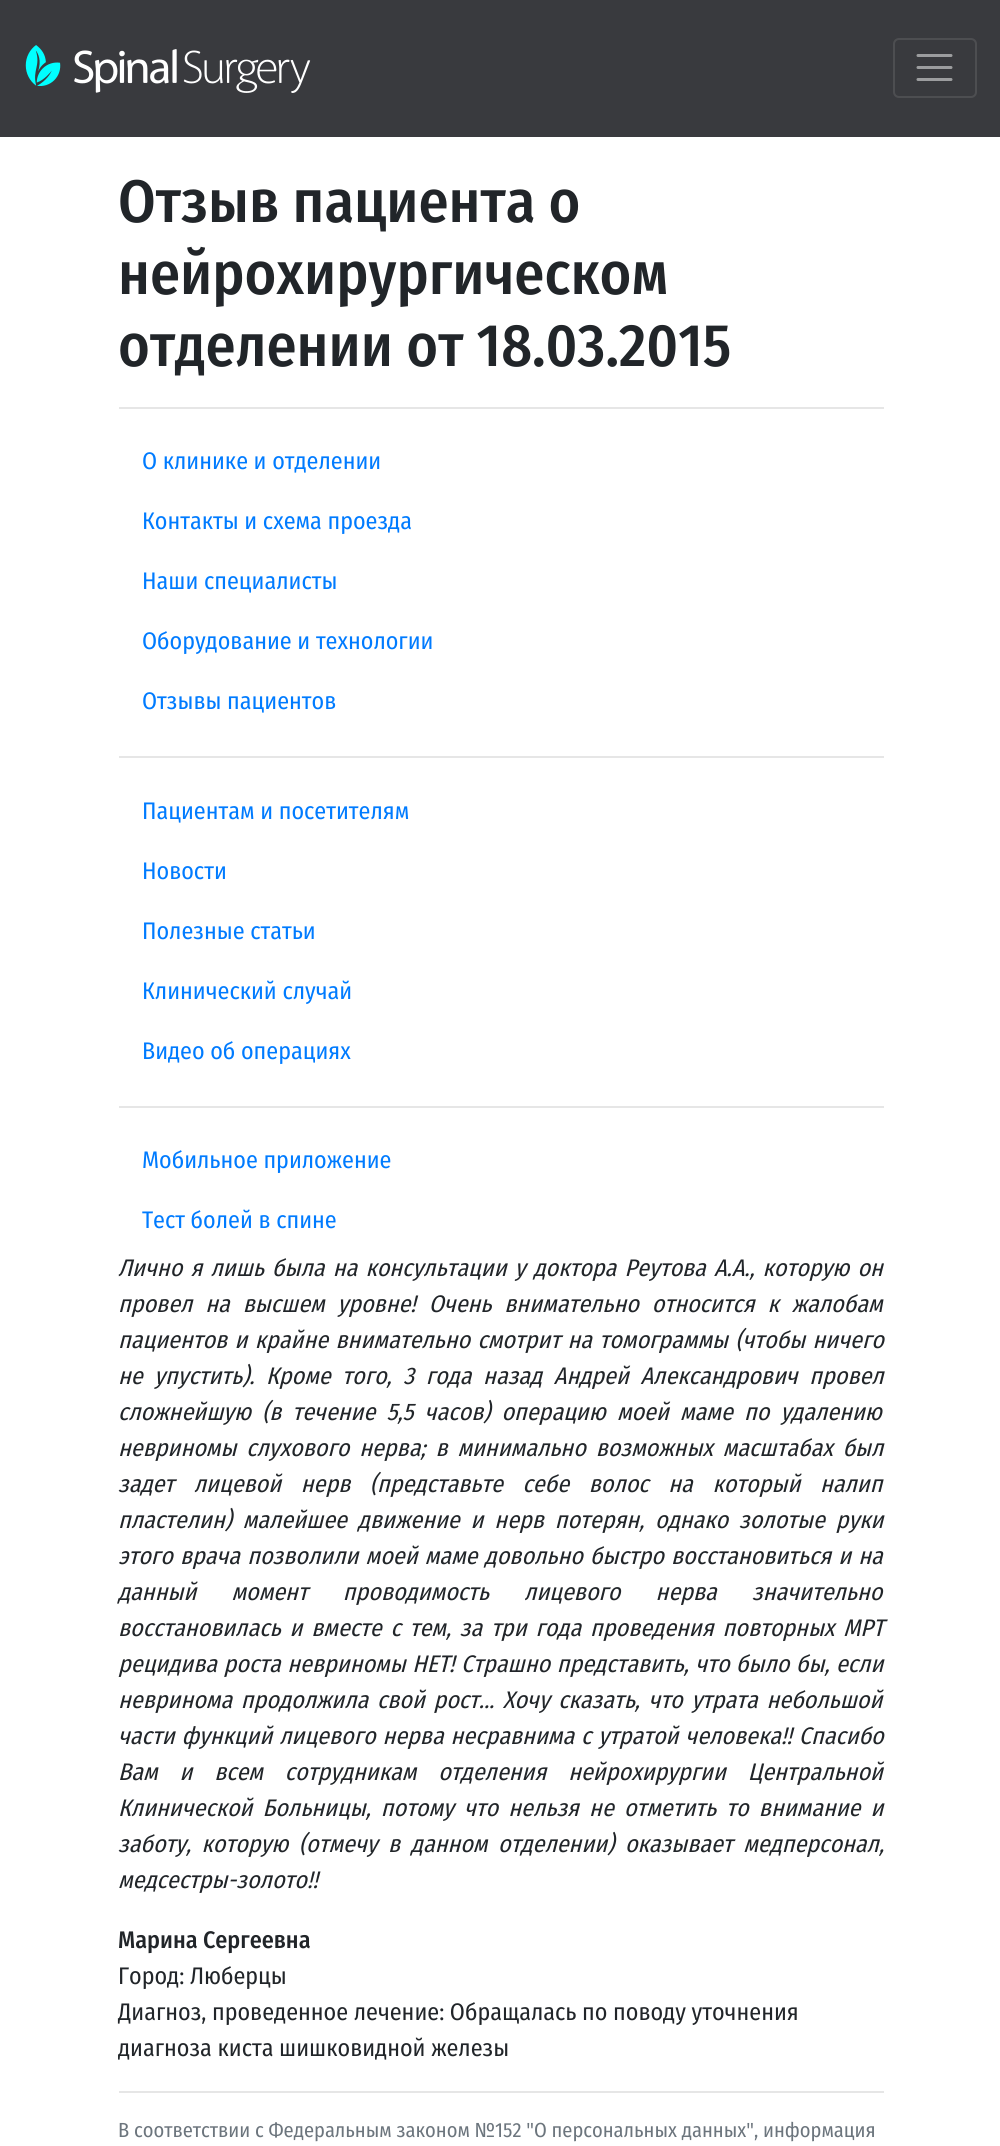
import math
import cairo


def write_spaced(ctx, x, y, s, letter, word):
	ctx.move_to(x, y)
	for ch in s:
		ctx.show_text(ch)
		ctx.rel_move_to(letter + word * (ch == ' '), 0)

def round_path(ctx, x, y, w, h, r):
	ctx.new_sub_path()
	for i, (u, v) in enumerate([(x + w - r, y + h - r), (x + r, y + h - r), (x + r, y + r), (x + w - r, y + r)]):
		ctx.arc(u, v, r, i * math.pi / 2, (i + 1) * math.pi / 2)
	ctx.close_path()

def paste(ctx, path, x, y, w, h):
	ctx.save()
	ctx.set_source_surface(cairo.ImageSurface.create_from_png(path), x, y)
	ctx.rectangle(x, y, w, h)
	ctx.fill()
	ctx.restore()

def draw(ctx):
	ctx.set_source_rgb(1, 1, 1)
	ctx.paint()
	ctx.set_source_rgb(0.224, 0.227, 0.243)
	ctx.rectangle(0, 0, 1000, 137)
	ctx.fill()
	paste(ctx, 'media/1.png', 25, 45, 286, 48)
	round_path(ctx, 894, 39, 82, 58, 5)
	ctx.set_source_rgb(0.302, 0.306, 0.318)
	ctx.stroke()
	ctx.new_path()
	ctx.move_to(918, 55.5)
	ctx.line_to(951, 55.5)
	ctx.move_to(918, 67.5)
	ctx.line_to(951, 67.5)
	ctx.move_to(918, 79.5)
	ctx.line_to(951, 79.5)
	ctx.set_source_rgb(0.612, 0.616, 0.624)
	ctx.set_line_width(3)
	ctx.set_line_cap(cairo.LINE_CAP_ROUND)
	ctx.stroke()
	ctx.select_font_face('Fira Sans Condensed Medium')
	ctx.set_font_size(60)
	ctx.set_source_rgb(0.129, 0.145, 0.161)
	for x, y, s in [
		(118, 222, 'Отзыв пациента о'),
		(118, 294, 'нейрохирургическом'),
		(118, 366, 'отделении от 18.03.2015'),
	]:
		ctx.move_to(x, y)
		ctx.show_text(s)
	ctx.set_source_rgb(0.902, 0.902, 0.902)
	ctx.rectangle(119, 407, 765, 2)
	ctx.fill()
	ctx.select_font_face('Fira Sans Condensed')
	ctx.set_font_size(24)
	ctx.set_source_rgb(0, 0.482, 1)
	for x, y, s in [
		(142, 469, 'О клинике и отделении'),
		(142, 529, 'Контакты и схема проезда'),
		(142, 589, 'Наши специалисты'),
		(142, 649, 'Оборудование и технологии'),
		(142, 709, 'Отзывы пациентов'),
	]:
		ctx.move_to(x, y)
		ctx.show_text(s)
	ctx.set_source_rgb(0.902, 0.902, 0.902)
	ctx.rectangle(119, 756, 765, 2)
	ctx.fill()
	ctx.set_source_rgb(0, 0.482, 1)
	for x, y, s in [
		(142, 819, 'Пациентам и посетителям'),
		(142, 879, 'Новости'),
		(142, 939, 'Полезные статьи'),
		(142, 999, 'Клинический случай'),
		(142, 1059, 'Видео об операциях'),
	]:
		ctx.move_to(x, y)
		ctx.show_text(s)
	ctx.set_source_rgb(0.902, 0.902, 0.902)
	ctx.rectangle(119, 1106, 765, 2)
	ctx.fill()
	ctx.set_source_rgb(0, 0.482, 1)
	ctx.move_to(142, 1168)
	ctx.show_text('Мобильное приложение')
	ctx.move_to(142, 1228)
	ctx.show_text('Тест болей в спине')
	ctx.select_font_face('Fira Sans Condensed', cairo.FONT_SLANT_ITALIC)
	ctx.set_source_rgb(0.129, 0.145, 0.161)
	write_spaced(ctx, 118, 1276, 'Лично я лишь была на консультации у доктора Реутова А.А., которую он', 0, 2.5)
	write_spaced(ctx, 118, 1312, 'провел на высшем уровне! Очень внимательно относится к жалобам', 0, 7.25)
	write_spaced(ctx, 118, 1348, 'пациентов и крайне внимательно смотрит на томограммы (чтобы ничего', 0, 1.75)
	write_spaced(ctx, 118, 1384, 'не упустить). Кроме того, 3 года назад Андрей Александрович провел', 0, 6)
	write_spaced(ctx, 118, 1420, 'сложнейшую (в течение 5,5 часов) операцию моей маме по удалению', 0, 5.5)
	write_spaced(ctx, 118, 1456, 'невриномы слухового нерва; в минимально возможных масштабах был', 0, 4.25)
	write_spaced(ctx, 118, 1492, 'задет лицевой нерв (представьте себе волос на который налип', 0, 14)
	write_spaced(ctx, 118, 1528, 'пластелин) малейшее движение и нерв потерян, однако золотые руки', 0, 5.25)
	write_spaced(ctx, 118, 1564, 'этого врача позволили моей маме довольно быстро восстановиться и на', 0, 1.5)
	write_spaced(ctx, 118, 1600, 'данный момент проводимость лицевого нерва значительно', 0, 29.5)
	write_spaced(ctx, 118, 1636, 'восстановилась и вместе с тем, за три года проведения повторных МРТ', 0, 3.25)
	write_spaced(ctx, 118, 1672, 'рецидива роста невриномы НЕТ! Страшно представить, что было бы, если', 0, 0.9)
	write_spaced(ctx, 118, 1708, 'невринома продолжила свой рост... Хочу сказать, что утрата небольшой', 0, 3)
	write_spaced(ctx, 118, 1744, 'части функций лицевого нерва несравнима с утратой человека!! Спасибо', 0, 1.25)
	write_spaced(ctx, 118, 1780, 'Вам и всем сотрудникам отделения нейрохирургии Центральной', 0, 16.25)
	write_spaced(ctx, 118, 1816, 'Клинической Больницы, потому что нельзя не отметить то внимание и', 0, 4.5)
	write_spaced(ctx, 118, 1852, 'заботу, которую (отмечу в данном отделении) оказывает медперсонал,', 0, 5)
	ctx.move_to(118, 1888)
	ctx.show_text('медсестры-золото!!')
	ctx.select_font_face('Fira Sans Condensed Medium')
	ctx.move_to(118, 1948)
	ctx.show_text('Марина Сергеевна')
	ctx.select_font_face('Fira Sans Condensed')
	for x, y, s in [
		(118, 1984, 'Город: Люберцы'),
		(118, 2020, 'Диагноз, проведенное лечение: Обращалась по поводу уточнения'),
		(118, 2056, 'диагноза киста шишковидной железы'),
	]:
		ctx.move_to(x, y)
		ctx.show_text(s)
	ctx.set_source_rgb(0.902, 0.902, 0.902)
	ctx.rectangle(119, 2091, 765, 2)
	ctx.fill()
	ctx.set_font_size(20.4)
	ctx.set_source_rgb(0.424, 0.459, 0.49)
	ctx.move_to(118, 2137)
	ctx.show_text('В соответствии с Федеральным законом №152 "О персональных данных", информация')


surface = cairo.ImageSurface(cairo.FORMAT_RGB24, 1000, 2146)
ctx = cairo.Context(surface)
options = cairo.FontOptions()
options.set_hint_metrics(cairo.HINT_METRICS_OFF)
options.set_hint_style(cairo.HINT_STYLE_NONE)
ctx.set_font_options(options)
ctx.set_miter_limit(4)
draw(ctx)
surface.write_to_png('image.png')
